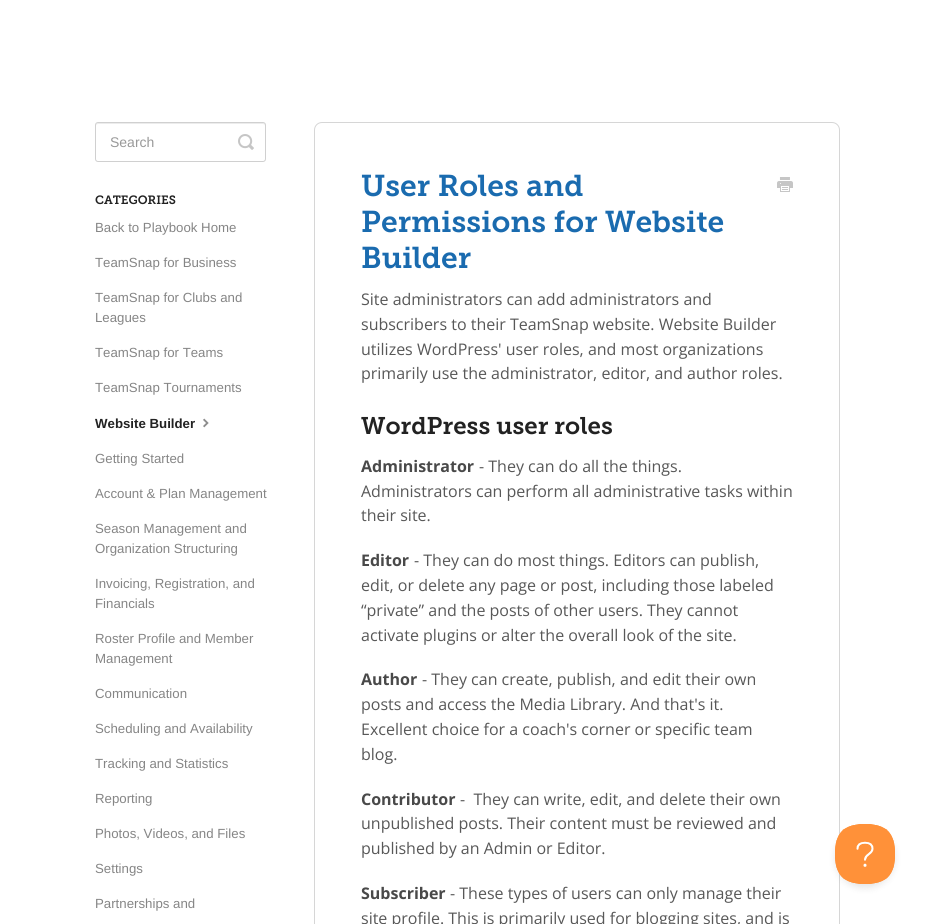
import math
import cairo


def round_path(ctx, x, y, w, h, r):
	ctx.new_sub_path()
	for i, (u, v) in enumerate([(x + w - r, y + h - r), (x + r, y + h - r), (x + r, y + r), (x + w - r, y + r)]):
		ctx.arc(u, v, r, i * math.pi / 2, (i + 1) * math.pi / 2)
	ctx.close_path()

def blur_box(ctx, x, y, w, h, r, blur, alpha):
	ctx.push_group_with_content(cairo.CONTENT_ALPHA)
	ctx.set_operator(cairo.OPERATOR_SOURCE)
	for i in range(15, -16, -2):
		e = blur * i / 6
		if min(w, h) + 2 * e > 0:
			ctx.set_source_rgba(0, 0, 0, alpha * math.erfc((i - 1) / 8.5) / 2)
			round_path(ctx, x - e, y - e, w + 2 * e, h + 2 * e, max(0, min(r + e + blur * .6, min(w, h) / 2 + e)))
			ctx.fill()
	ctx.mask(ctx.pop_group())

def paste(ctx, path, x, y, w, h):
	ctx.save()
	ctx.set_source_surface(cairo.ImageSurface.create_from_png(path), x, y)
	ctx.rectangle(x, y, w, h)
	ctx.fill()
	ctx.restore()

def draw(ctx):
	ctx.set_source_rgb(1, 1, 1)
	ctx.paint()
	ctx.set_source_rgb(0.925, 0.925, 0.925)
	ctx.new_path()
	ctx.move_to(98, 124)
	ctx.line_to(263, 124)
	ctx.curve_to(264, 124, 265, 125, 265, 126)
	ctx.curve_to(265, 125, 265, 123, 263, 123)
	ctx.line_to(98, 123)
	ctx.curve_to(96, 123, 96, 125, 96, 126)
	ctx.curve_to(96, 125, 97, 124, 98, 124)
	ctx.close_path()
	ctx.fill()
	round_path(ctx, 95.5, 122.5, 170, 39, 2.5)
	ctx.set_source_rgb(0.816, 0.816, 0.816)
	ctx.set_line_width(1)
	ctx.stroke()
	ctx.select_font_face('Liberation Sans')
	ctx.set_font_size(14)
	ctx.set_source_rgb(0.6, 0.6, 0.6)
	ctx.move_to(110, 147)
	ctx.show_text('Search')
	paste(ctx, 'media/1.png', 238, 134, 16, 16)
	ctx.select_font_face('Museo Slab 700 SemiBold')
	ctx.set_font_size(12)
	ctx.set_source_rgb(0.133, 0.133, 0.133)
	ctx.move_to(95, 204)
	ctx.show_text('CATEGORIES')
	ctx.select_font_face('Liberation Sans')
	ctx.set_font_size(13.25)
	ctx.set_source_rgb(0.522, 0.522, 0.522)
	for x, y, s in [
		(95, 232, 'Back to Playbook Home'),
		(95, 267, 'TeamSnap for Business'),
		(95, 302, 'TeamSnap for Clubs and'),
		(95, 322, 'Leagues'),
		(95, 357, 'TeamSnap for Teams'),
		(95, 392, 'TeamSnap Tournaments'),
	]:
		ctx.move_to(x, y)
		ctx.show_text(s)
	ctx.select_font_face('Liberation Sans', cairo.FONT_SLANT_NORMAL, cairo.FONT_WEIGHT_BOLD)
	ctx.set_source_rgb(0.133, 0.133, 0.133)
	ctx.move_to(95, 428)
	ctx.show_text('Website Builder')
	paste(ctx, 'media/2.png', 203, 418, 6, 10)
	ctx.select_font_face('Liberation Sans')
	ctx.set_source_rgb(0.522, 0.522, 0.522)
	for x, y, s in [
		(95, 463, 'Getting Started'),
		(95, 498, 'Account & Plan Management'),
		(95, 533, 'Season Management and'),
		(95, 553, 'Organization Structuring'),
		(95, 588, 'Invoicing, Registration, and'),
		(95, 608, 'Financials'),
		(95, 643, 'Roster Profile and Member'),
		(95, 663, 'Management'),
		(95, 698, 'Communication'),
		(95, 733, 'Scheduling and Availability'),
		(95, 768, 'Tracking and Statistics'),
		(95, 803, 'Reporting'),
		(95, 838, 'Photos, Videos, and Files'),
		(95, 873, 'Settings'),
		(95, 908, 'Partnerships and'),
	]:
		ctx.move_to(x, y)
		ctx.show_text(s)
	round_path(ctx, 314.5, 122.5, 525, 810, 7.5)
	ctx.set_source_rgb(0.839, 0.839, 0.839)
	ctx.stroke()
	ctx.select_font_face('Museo Slab 700 SemiBold')
	ctx.set_font_size(30)
	ctx.set_source_rgb(0.102, 0.42, 0.686)
	for x, y, s in [
		(361, 196, 'User Roles and'),
		(361, 232, 'Permissions for Website'),
		(361, 268, 'Builder'),
	]:
		ctx.move_to(x, y)
		ctx.show_text(s)
	paste(ctx, 'media/3.png', 777, 177, 16, 15)
	ctx.select_font_face('Open Sans')
	ctx.set_font_size(16)
	ctx.set_source_rgb(0.345, 0.345, 0.345)
	for x, y, s in [
		(361, 305, 'Site administrators can add administrators and'),
		(361, 330, 'subscribers to their TeamSnap website. Website Builder'),
		(361, 355, 'utilizes WordPress\' user roles, and most organizations'),
		(361, 379, 'primarily use the administrator, editor, and author roles.'),
	]:
		ctx.move_to(x, y)
		ctx.show_text(s)
	ctx.select_font_face('Museo Slab 700 SemiBold')
	ctx.set_font_size(24)
	ctx.set_source_rgb(0.133, 0.133, 0.133)
	ctx.move_to(361, 434)
	ctx.show_text('WordPress user roles')
	ctx.select_font_face('Open Sans', cairo.FONT_SLANT_NORMAL, cairo.FONT_WEIGHT_BOLD)
	ctx.set_font_size(16)
	ctx.set_source_rgb(0.286, 0.286, 0.286)
	ctx.move_to(361, 472)
	ctx.show_text('Administrator')
	ctx.select_font_face('Open Sans')
	ctx.set_source_rgb(0.345, 0.345, 0.345)
	for x, y, s in [
		(479, 472, '- They can do all the things.'),
		(361, 497, 'Administrators can perform all administrative tasks within'),
		(361, 521, 'their site.'),
	]:
		ctx.move_to(x, y)
		ctx.show_text(s)
	ctx.select_font_face('Open Sans', cairo.FONT_SLANT_NORMAL, cairo.FONT_WEIGHT_BOLD)
	ctx.set_source_rgb(0.286, 0.286, 0.286)
	ctx.move_to(361, 566)
	ctx.show_text('Editor')
	ctx.select_font_face('Open Sans')
	ctx.set_source_rgb(0.345, 0.345, 0.345)
	for x, y, s in [
		(414, 566, '- They can do most things. Editors can publish,'),
		(361, 591, 'edit, or delete any page or post, including those labeled'),
		(361, 616, '“private” and the posts of other users. They cannot'),
		(361, 641, 'activate plugins or alter the overall look of the site.'),
	]:
		ctx.move_to(x, y)
		ctx.show_text(s)
	ctx.select_font_face('Open Sans', cairo.FONT_SLANT_NORMAL, cairo.FONT_WEIGHT_BOLD)
	ctx.set_source_rgb(0.286, 0.286, 0.286)
	ctx.move_to(361, 685)
	ctx.show_text('Author')
	ctx.select_font_face('Open Sans')
	ctx.set_source_rgb(0.345, 0.345, 0.345)
	for x, y, s in [
		(422, 685, '- They can create, publish, and edit their own'),
		(361, 710, 'posts and access the Media Library. And that\'s it.'),
		(361, 735, 'Excellent choice for a coach\'s corner or specific team'),
		(361, 760, 'blog.'),
	]:
		ctx.move_to(x, y)
		ctx.show_text(s)
	ctx.select_font_face('Open Sans', cairo.FONT_SLANT_NORMAL, cairo.FONT_WEIGHT_BOLD)
	ctx.set_source_rgb(0.286, 0.286, 0.286)
	ctx.move_to(361, 805)
	ctx.show_text('Contributor')
	ctx.select_font_face('Open Sans')
	ctx.set_source_rgb(0.345, 0.345, 0.345)
	for x, y, s in [
		(460, 805, '-  They can write, edit, and delete their own'),
		(361, 829, 'unpublished posts. Their content must be reviewed and'),
		(361, 854, 'published by an Admin or Editor.'),
	]:
		ctx.move_to(x, y)
		ctx.show_text(s)
	ctx.select_font_face('Open Sans', cairo.FONT_SLANT_NORMAL, cairo.FONT_WEIGHT_BOLD)
	ctx.set_source_rgb(0.286, 0.286, 0.286)
	ctx.move_to(361, 899)
	ctx.show_text('Subscriber')
	ctx.select_font_face('Open Sans')
	ctx.set_source_rgb(0.345, 0.345, 0.345)
	ctx.move_to(450, 899)
	ctx.show_text('- These types of users can only manage their')
	ctx.move_to(361, 924)
	ctx.show_text('site profile. This is primarily used for blogging sites, and is')
	ctx.set_source_rgb(0, 0, 0)
	blur_box(ctx, 835, 828, 60, 60, 30, 3.5, 0.1)
	paste(ctx, 'media/4.png', 835, 824, 60, 60)


surface = cairo.ImageSurface(cairo.FORMAT_RGB24, 935, 924)
ctx = cairo.Context(surface)
options = cairo.FontOptions()
options.set_hint_metrics(cairo.HINT_METRICS_OFF)
options.set_hint_style(cairo.HINT_STYLE_NONE)
ctx.set_font_options(options)
ctx.set_miter_limit(4)
draw(ctx)
surface.write_to_png('image.png')
